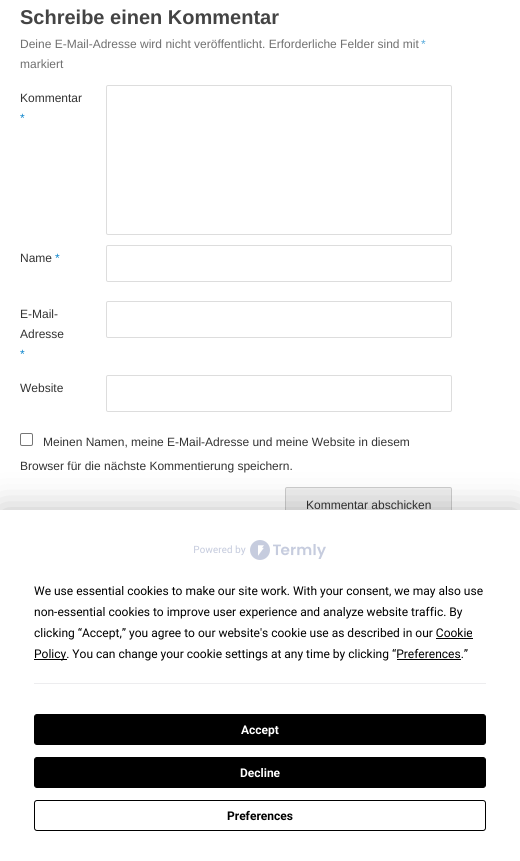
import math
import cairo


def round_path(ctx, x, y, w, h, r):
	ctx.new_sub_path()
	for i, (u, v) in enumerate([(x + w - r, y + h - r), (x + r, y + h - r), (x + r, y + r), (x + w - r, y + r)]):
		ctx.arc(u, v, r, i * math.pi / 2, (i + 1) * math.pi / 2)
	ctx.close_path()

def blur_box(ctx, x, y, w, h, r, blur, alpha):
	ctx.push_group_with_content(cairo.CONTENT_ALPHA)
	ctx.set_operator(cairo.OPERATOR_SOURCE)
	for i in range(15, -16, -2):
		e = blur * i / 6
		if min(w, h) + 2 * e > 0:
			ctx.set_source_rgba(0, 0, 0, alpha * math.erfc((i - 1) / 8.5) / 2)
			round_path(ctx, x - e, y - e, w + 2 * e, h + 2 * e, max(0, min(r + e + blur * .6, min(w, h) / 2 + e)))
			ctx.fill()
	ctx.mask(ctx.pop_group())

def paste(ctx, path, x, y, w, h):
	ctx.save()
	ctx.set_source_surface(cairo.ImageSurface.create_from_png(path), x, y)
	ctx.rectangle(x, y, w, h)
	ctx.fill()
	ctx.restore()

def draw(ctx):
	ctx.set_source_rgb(1, 1, 1)
	ctx.paint()
	ctx.select_font_face('Liberation Sans', cairo.FONT_SLANT_NORMAL, cairo.FONT_WEIGHT_BOLD)
	ctx.set_font_size(20)
	ctx.set_source_rgb(0.267, 0.267, 0.267)
	ctx.move_to(20, 24)
	ctx.show_text('Schreibe einen Kommentar')
	ctx.select_font_face('Liberation Sans')
	ctx.set_font_size(12)
	ctx.set_source_rgb(0.439, 0.439, 0.439)
	ctx.move_to(20, 48)
	ctx.show_text('Deine E-Mail-Adresse wird nicht veröffentlicht. Erforderliche Felder sind mit')
	ctx.set_source_rgb(0.337, 0.667, 0.859)
	ctx.move_to(421, 48)
	ctx.show_text('*')
	ctx.set_source_rgb(0.439, 0.439, 0.439)
	ctx.move_to(20, 68)
	ctx.show_text('markiert')
	ctx.set_source_rgb(0.2, 0.2, 0.2)
	ctx.move_to(20, 102)
	ctx.show_text('Kommentar')
	ctx.set_source_rgb(0.051, 0.522, 0.8)
	ctx.move_to(20, 122)
	ctx.show_text('*')
	round_path(ctx, 106.5, 85.5, 345, 149, 1.5)
	ctx.set_source_rgb(0.867, 0.867, 0.867)
	ctx.set_line_width(1)
	ctx.stroke()
	ctx.set_source_rgb(0.2, 0.2, 0.2)
	ctx.move_to(20, 262)
	ctx.show_text('Name')
	ctx.set_source_rgb(0.051, 0.522, 0.8)
	ctx.move_to(55, 262)
	ctx.show_text('*')
	round_path(ctx, 106.5, 245.5, 345, 36, 1.5)
	ctx.set_source_rgb(0.867, 0.867, 0.867)
	ctx.stroke()
	ctx.set_source_rgb(0.2, 0.2, 0.2)
	ctx.move_to(20, 318)
	ctx.show_text('E-Mail-')
	ctx.move_to(20, 338)
	ctx.show_text('Adresse')
	ctx.set_source_rgb(0.051, 0.522, 0.8)
	ctx.move_to(20, 358)
	ctx.show_text('*')
	round_path(ctx, 106.5, 301.5, 345, 36, 1.5)
	ctx.set_source_rgb(0.867, 0.867, 0.867)
	ctx.stroke()
	ctx.set_source_rgb(0.2, 0.2, 0.2)
	ctx.move_to(20, 392)
	ctx.show_text('Website')
	round_path(ctx, 106.5, 375.5, 345, 36, 1.5)
	ctx.set_source_rgb(0.867, 0.867, 0.867)
	ctx.stroke()
	round_path(ctx, 20.5, 433.5, 12, 12, 1.5)
	ctx.set_source_rgb(0.463, 0.463, 0.463)
	ctx.stroke()
	ctx.set_source_rgb(0.2, 0.2, 0.2)
	ctx.move_to(43, 446)
	ctx.show_text('Meinen Namen, meine E-Mail-Adresse und meine Website in diesem')
	ctx.move_to(20, 470)
	ctx.show_text('Browser für die nächste Kommentierung speichern.')
	ctx.set_source_rgb(0.937, 0.937, 0.937)
	round_path(ctx, 285.5, 487.5, 166, 35, 1.5)
	ctx.fill_preserve()
	ctx.set_source_rgb(0.8, 0.8, 0.8)
	ctx.stroke()
	ctx.set_source_rgb(0.2, 0.2, 0.2)
	ctx.move_to(306, 509)
	ctx.show_text('Kommentar abschicken')
	ctx.set_source_rgb(0, 0, 0)
	blur_box(ctx, 0, 510, 520, 351, 0, 17.5, 0.25)
	ctx.set_source_rgb(1, 1, 1)
	ctx.rectangle(0, 510, 520, 351)
	ctx.fill()
	paste(ctx, 'media/1.png', 194, 540, 132, 20)
	ctx.select_font_face('Roboto')
	ctx.set_source_rgb(0, 0, 0)
	for x, y, s in [
		(34, 595, 'We use essential cookies to make our site work. With your consent, we may also use'),
		(34, 616, 'non-essential cookies to improve user experience and analyze website traffic. By'),
		(34, 637, 'clicking “Accept,” you agree to our website\'s cookie use as described in our Cookie'),
	]:
		ctx.move_to(x, y)
		ctx.show_text(s)
	ctx.rectangle(34, 659, 33, 1)
	ctx.fill()
	ctx.move_to(34, 658)
	ctx.show_text('Policy. You can change your cookie settings at any time by clicking “Preferences.”')
	ctx.rectangle(436, 638, 37, 1)
	ctx.rectangle(397, 659, 64, 1)
	ctx.fill()
	ctx.set_source_rgb(0.929, 0.929, 0.937)
	ctx.rectangle(34, 683, 452, 1)
	ctx.fill()
	ctx.set_source_rgb(0, 0, 0)
	round_path(ctx, 34.5, 714.5, 451, 30, 2.5)
	ctx.fill_preserve()
	ctx.stroke()
	ctx.select_font_face('Roboto', cairo.FONT_SLANT_NORMAL, cairo.FONT_WEIGHT_BOLD)
	ctx.set_source_rgb(1, 1, 1)
	ctx.move_to(241, 734)
	ctx.show_text('Accept')
	ctx.set_source_rgb(0, 0, 0)
	round_path(ctx, 34.5, 757.5, 451, 30, 2.5)
	ctx.fill_preserve()
	ctx.stroke()
	ctx.set_source_rgb(1, 1, 1)
	ctx.move_to(240, 777)
	ctx.show_text('Decline')
	round_path(ctx, 34.5, 800.5, 451, 30, 2.5)
	ctx.set_source_rgb(0, 0, 0)
	ctx.stroke()
	ctx.move_to(227, 820)
	ctx.show_text('Preferences')


surface = cairo.ImageSurface(cairo.FORMAT_RGB24, 520, 861)
ctx = cairo.Context(surface)
options = cairo.FontOptions()
options.set_hint_metrics(cairo.HINT_METRICS_OFF)
options.set_hint_style(cairo.HINT_STYLE_NONE)
ctx.set_font_options(options)
ctx.set_miter_limit(4)
draw(ctx)
surface.write_to_png('image.png')
